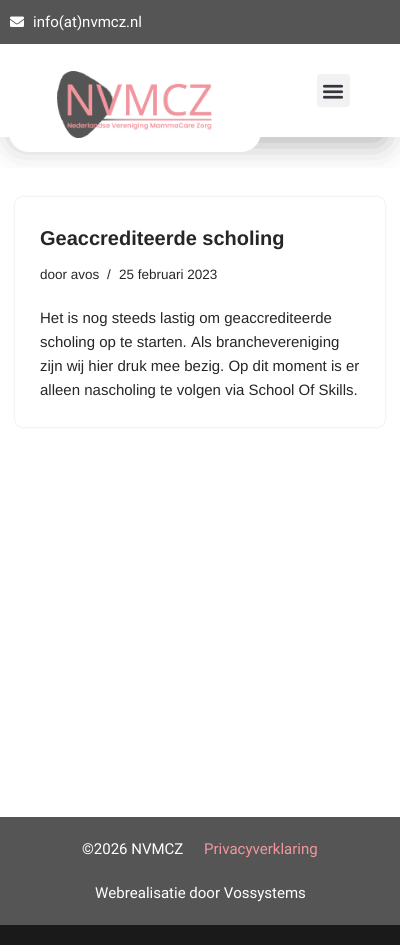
import math
import cairo


def round_path(ctx, x, y, w, h, r):
	ctx.new_sub_path()
	for i, (u, v) in enumerate([(x + w - r, y + h - r), (x + r, y + h - r), (x + r, y + r), (x + w - r, y + r)]):
		ctx.arc(u, v, r, i * math.pi / 2, (i + 1) * math.pi / 2)
	ctx.close_path()

def blur_box(ctx, x, y, w, h, r, blur, alpha):
	ctx.push_group_with_content(cairo.CONTENT_ALPHA)
	ctx.set_operator(cairo.OPERATOR_SOURCE)
	for i in range(15, -16, -2):
		e = blur * i / 6
		if min(w, h) + 2 * e > 0:
			ctx.set_source_rgba(0, 0, 0, alpha * math.erfc((i - 1) / 8.5) / 2)
			round_path(ctx, x - e, y - e, w + 2 * e, h + 2 * e, max(0, min(r + e + blur * .6, min(w, h) / 2 + e)))
			ctx.fill()
	ctx.mask(ctx.pop_group())

def paste(ctx, path, x, y, w, h):
	ctx.save()
	ctx.set_source_surface(cairo.ImageSurface.create_from_png(path), x, y)
	ctx.rectangle(x, y, w, h)
	ctx.fill()
	ctx.restore()

def draw(ctx):
	ctx.set_source_rgb(1, 1, 1)
	ctx.paint()
	ctx.set_source_rgb(0.333, 0.333, 0.333)
	ctx.rectangle(0, 0, 400, 44)
	ctx.fill()
	paste(ctx, 'media/1.png', 10, 16, 14, 11)
	ctx.select_font_face('Roboto')
	ctx.set_font_size(15)
	ctx.set_source_rgb(1, 1, 1)
	ctx.move_to(33, 27)
	ctx.show_text('info(at)nvmcz.nl')
	ctx.save()
	ctx.rectangle(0, 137, 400, 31)
	ctx.clip()
	ctx.set_source_rgb(0, 0, 0)
	blur_box(ctx, 18, 83, 364, 57, 0, 17.5, 0.36)
	ctx.restore()
	round_path(ctx, 10.5, 58.5, 249, 92, 18.5)
	ctx.fill_preserve()
	ctx.set_line_width(3)
	ctx.stroke()
	paste(ctx, 'media/2.png', 57, 71, 155, 67)
	ctx.set_source_rgb(0.949, 0.949, 0.949)
	round_path(ctx, 317, 74, 33, 33, 3)
	ctx.fill()
	paste(ctx, 'media/3.png', 322, 84, 22, 15)
	ctx.set_source_rgb(0, 0, 0)
	blur_box(ctx, 15, 197, 370, 230, 8, 1, 0.15)
	ctx.set_source_rgb(1, 1, 1)
	round_path(ctx, 15, 197, 370, 230, 8)
	ctx.fill()
	ctx.select_font_face('Liberation Sans', cairo.FONT_SLANT_NORMAL, cairo.FONT_WEIGHT_BOLD)
	ctx.set_font_size(20)
	ctx.set_source_rgb(0.153, 0.149, 0.149)
	ctx.move_to(40, 245)
	ctx.show_text('Geaccrediteerde scholing')
	ctx.select_font_face('Liberation Sans')
	ctx.set_font_size(13.5)
	for x, y, s in [
		(40, 279, 'door avos'),
		(107, 279, '/'),
		(119, 279, '25 februari 2023'),
	]:
		ctx.move_to(x, y)
		ctx.show_text(s)
	ctx.set_font_size(15)
	for x, y, s in [
		(40, 323, 'Het is nog steeds lastig om geaccrediteerde'),
		(40, 347, 'scholing op te starten. Als branchevereniging'),
		(40, 371, 'zijn wij hier druk mee bezig. Op dit moment is er'),
		(40, 395, 'alleen nascholing te volgen via School Of Skills.'),
	]:
		ctx.move_to(x, y)
		ctx.show_text(s)
	ctx.set_source_rgb(0.333, 0.333, 0.333)
	ctx.rectangle(0, 817, 400, 108)
	ctx.fill()
	ctx.set_source_rgb(0.102, 0.102, 0.102)
	ctx.rectangle(0, 925, 400, 20)
	ctx.fill()
	ctx.select_font_face('Roboto')
	ctx.set_source_rgb(1, 1, 1)
	ctx.move_to(82, 854)
	ctx.show_text('©2026 NVMCZ')
	ctx.set_source_rgb(0.941, 0.588, 0.616)
	ctx.move_to(204, 854)
	ctx.show_text('Privacyverklaring')
	ctx.set_source_rgb(1, 1, 1)
	ctx.move_to(95, 898)
	ctx.show_text('Webrealisatie door Vossystems')


surface = cairo.ImageSurface(cairo.FORMAT_RGB24, 400, 945)
ctx = cairo.Context(surface)
options = cairo.FontOptions()
options.set_hint_metrics(cairo.HINT_METRICS_OFF)
options.set_hint_style(cairo.HINT_STYLE_NONE)
ctx.set_font_options(options)
ctx.set_miter_limit(4)
draw(ctx)
surface.write_to_png('image.png')
